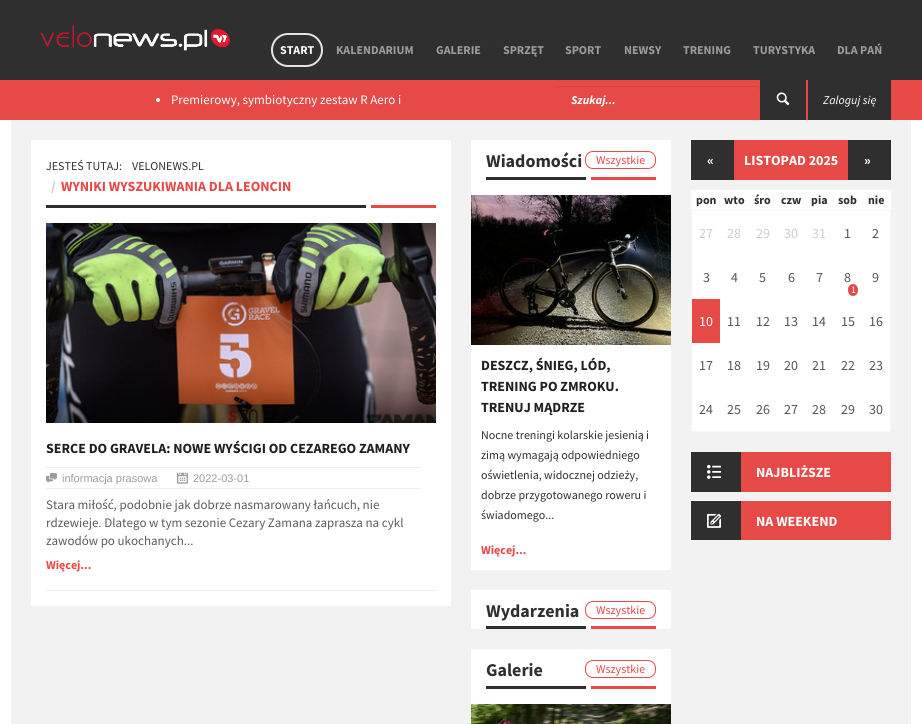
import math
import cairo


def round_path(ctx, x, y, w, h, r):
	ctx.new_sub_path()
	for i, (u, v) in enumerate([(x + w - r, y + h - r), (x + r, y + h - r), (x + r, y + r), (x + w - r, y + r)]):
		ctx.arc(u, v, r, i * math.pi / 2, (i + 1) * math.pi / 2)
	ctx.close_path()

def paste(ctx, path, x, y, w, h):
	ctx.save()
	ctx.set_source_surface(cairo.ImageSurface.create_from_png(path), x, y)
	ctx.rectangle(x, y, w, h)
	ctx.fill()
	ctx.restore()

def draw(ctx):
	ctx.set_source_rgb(1, 1, 1)
	ctx.paint()
	ctx.set_source_rgb(0.184, 0.184, 0.184)
	ctx.rectangle(0, 0, 922, 80)
	ctx.fill()
	paste(ctx, 'media/1.png', 40, 25, 190, 26)
	round_path(ctx, 272, 34, 50, 32, 16)
	ctx.set_source_rgb(0.89, 0.89, 0.89)
	ctx.stroke()
	ctx.select_font_face('Source Sans Pro', cairo.FONT_SLANT_NORMAL, cairo.FONT_WEIGHT_BOLD)
	ctx.set_font_size(12)
	ctx.set_source_rgb(1, 1, 1)
	ctx.move_to(280, 54)
	ctx.show_text('START')
	ctx.set_source_rgb(0.612, 0.612, 0.612)
	for x, y, s in [
		(336, 54, 'KALENDARIUM'),
		(436, 54, 'GALERIE'),
		(503, 54, 'SPRZĘT'),
		(565, 54, 'SPORT'),
		(624, 54, 'NEWSY'),
		(683, 54, 'TRENING'),
		(753, 54, 'TURYSTYKA'),
		(837, 54, 'DLA PAŃ'),
	]:
		ctx.move_to(x, y)
		ctx.show_text(s)
	ctx.set_source_rgb(0.902, 0.286, 0.275)
	ctx.rectangle(0, 80, 922, 40)
	ctx.fill()
	ctx.set_source_rgb(1, 1, 1)
	ctx.arc(158, 100, 2, 0, 2 * math.pi)
	ctx.fill()
	ctx.select_font_face('Source Sans Pro')
	ctx.set_font_size(13)
	ctx.move_to(171, 104)
	ctx.show_text('Premierowy, symbiotyczny zestaw R Aero i')
	ctx.set_source_rgb(0.835, 0.267, 0.255)
	ctx.new_path()
	ctx.move_to(560, 87)
	ctx.line_to(756, 87)
	ctx.curve_to(758, 87, 760, 89, 760, 91)
	ctx.line_to(760, 90)
	ctx.curve_to(760, 88, 758, 86, 756, 86)
	ctx.line_to(560, 86)
	ctx.curve_to(558, 86, 556, 88, 556, 90)
	ctx.line_to(556, 91)
	ctx.curve_to(556, 89, 558, 87, 560, 87)
	ctx.close_path()
	ctx.fill()
	ctx.select_font_face('Source Sans Pro', cairo.FONT_SLANT_ITALIC, cairo.FONT_WEIGHT_BOLD)
	ctx.set_font_size(12)
	ctx.set_source_rgb(1, 1, 1)
	ctx.move_to(571, 104)
	ctx.show_text('Szukaj...')
	ctx.set_source_rgb(0.184, 0.184, 0.184)
	ctx.rectangle(760, 80, 46, 40)
	ctx.fill()
	paste(ctx, 'media/2.png', 776, 92, 14, 14)
	ctx.rectangle(808, 80, 83, 40)
	ctx.fill()
	ctx.select_font_face('Source Sans Pro', cairo.FONT_SLANT_ITALIC)
	ctx.set_source_rgb(1, 1, 1)
	ctx.move_to(823, 104)
	ctx.show_text('Zaloguj się')
	ctx.rectangle(21, 130, 880, 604)
	ctx.set_source_rgb(0.949, 0.949, 0.949)
	ctx.set_line_width(20)
	ctx.stroke()
	ctx.rectangle(31, 140, 860, 584)
	ctx.fill()
	ctx.set_source_rgb(1, 1, 1)
	ctx.rectangle(31, 140, 420, 466)
	ctx.fill()
	ctx.set_source_rgb(0.184, 0.184, 0.184)
	ctx.rectangle(46, 205, 320, 3)
	ctx.fill()
	ctx.select_font_face('Source Sans Pro')
	ctx.move_to(46, 170)
	ctx.show_text('JESTEŚ TUTAJ:')
	ctx.move_to(132, 170)
	ctx.show_text('VELONEWS.PL')
	ctx.select_font_face('Source Sans Pro', cairo.FONT_SLANT_NORMAL, cairo.FONT_WEIGHT_BOLD)
	ctx.set_font_size(14)
	ctx.set_source_rgb(0.8, 0.8, 0.8)
	ctx.move_to(51, 191)
	ctx.show_text('/')
	ctx.set_source_rgb(0.902, 0.286, 0.275)
	ctx.move_to(61, 191)
	ctx.show_text('WYNIKI WYSZUKIWANIA DLA LEONCIN')
	paste(ctx, 'media/3.png', 366, 205, 70, 3)
	ctx.set_source_rgb(0.929, 0.929, 0.929)
	ctx.rectangle(46, 590, 390, 1)
	ctx.fill()
	paste(ctx, 'media/4.png', 46, 223, 390, 200)
	ctx.set_source_rgb(0.122, 0.122, 0.122)
	ctx.move_to(46, 453)
	ctx.show_text('SERCE DO GRAVELA: NOWE WYŚCIGI OD CEZAREGO ZAMANY')
	ctx.set_source_rgb(0.929, 0.929, 0.929)
	ctx.rectangle(46, 467, 375, 1)
	ctx.fill()
	ctx.rectangle(46, 488, 375, 1)
	ctx.fill()
	paste(ctx, 'media/5.png', 46, 473, 11, 10)
	ctx.select_font_face('Liberation Sans')
	ctx.set_font_size(11)
	ctx.set_source_rgb(0.612, 0.612, 0.612)
	ctx.move_to(62, 482)
	ctx.show_text('informacja prasowa')
	paste(ctx, 'media/6.png', 177, 472, 11, 12)
	ctx.move_to(193, 482)
	ctx.show_text('2022-03-01')
	ctx.select_font_face('Source Sans Pro')
	ctx.set_font_size(13)
	ctx.set_source_rgb(0.357, 0.357, 0.357)
	for x, y, s in [
		(46, 509, 'Stara miłość, podobnie jak dobrze nasmarowany łańcuch, nie'),
		(46, 527, 'rdzewieje. Dlatego w tym sezonie Cezary Zamana zaprasza na cykl'),
		(46, 545, 'zawodów po ukochanych...'),
	]:
		ctx.move_to(x, y)
		ctx.show_text(s)
	ctx.select_font_face('Source Sans Pro', cairo.FONT_SLANT_NORMAL, cairo.FONT_WEIGHT_BOLD)
	ctx.set_font_size(12)
	ctx.set_source_rgb(0.902, 0.286, 0.275)
	ctx.move_to(46, 569)
	ctx.show_text('Więcej...')
	ctx.set_source_rgb(1, 1, 1)
	ctx.rectangle(471, 140, 200, 430)
	ctx.fill()
	ctx.set_source_rgb(0.184, 0.184, 0.184)
	ctx.rectangle(486, 177, 100, 3)
	ctx.fill()
	ctx.set_font_size(18)
	ctx.move_to(486, 167)
	ctx.show_text('Wiadomości')
	round_path(ctx, 585.5, 151.5, 70, 17, 7.5)
	ctx.set_source_rgb(0.902, 0.286, 0.275)
	ctx.set_line_width(1)
	ctx.stroke()
	ctx.select_font_face('Source Sans Pro')
	ctx.set_font_size(12)
	ctx.move_to(596, 164)
	ctx.show_text('Wszystkie')
	paste(ctx, 'media/3.png', 586, 177, 70, 3)
	paste(ctx, 'media/7.png', 471, 195, 200, 150)
	ctx.select_font_face('Source Sans Pro', cairo.FONT_SLANT_NORMAL, cairo.FONT_WEIGHT_BOLD)
	ctx.set_font_size(14)
	ctx.set_source_rgb(0.122, 0.122, 0.122)
	for x, y, s in [
		(481, 370, 'DESZCZ, ŚNIEG, LÓD,'),
		(481, 391, 'TRENING PO ZMROKU.'),
		(481, 412, 'TRENUJ MĄDRZE'),
	]:
		ctx.move_to(x, y)
		ctx.show_text(s)
	ctx.select_font_face('Source Sans Pro')
	ctx.set_font_size(12)
	ctx.set_source_rgb(0.184, 0.184, 0.184)
	for x, y, s in [
		(481, 439, 'Nocne treningi kolarskie jesienią i'),
		(481, 459, 'zimą wymagają odpowiedniego'),
		(481, 479, 'oświetlenia, widocznej odzieży,'),
		(481, 499, 'dobrze przygotowanego roweru i'),
		(481, 519, 'świadomego...'),
	]:
		ctx.move_to(x, y)
		ctx.show_text(s)
	ctx.select_font_face('Source Sans Pro', cairo.FONT_SLANT_NORMAL, cairo.FONT_WEIGHT_BOLD)
	ctx.set_source_rgb(0.902, 0.286, 0.275)
	ctx.move_to(481, 554)
	ctx.show_text('Więcej...')
	ctx.set_source_rgb(1, 1, 1)
	ctx.rectangle(471, 590, 200, 39)
	ctx.fill()
	ctx.set_source_rgb(0.184, 0.184, 0.184)
	ctx.rectangle(486, 626, 100, 3)
	ctx.fill()
	ctx.set_font_size(18)
	ctx.move_to(486, 617)
	ctx.show_text('Wydarzenia')
	round_path(ctx, 585.5, 601.5, 70, 17, 7.5)
	ctx.set_source_rgb(0.902, 0.286, 0.275)
	ctx.stroke()
	ctx.select_font_face('Source Sans Pro')
	ctx.set_font_size(12)
	ctx.move_to(596, 614)
	ctx.show_text('Wszystkie')
	paste(ctx, 'media/3.png', 586, 626, 70, 3)
	ctx.set_source_rgb(1, 1, 1)
	ctx.rectangle(471, 649, 200, 55)
	ctx.fill()
	ctx.set_source_rgb(0.184, 0.184, 0.184)
	ctx.rectangle(486, 686, 100, 3)
	ctx.fill()
	ctx.select_font_face('Source Sans Pro', cairo.FONT_SLANT_NORMAL, cairo.FONT_WEIGHT_BOLD)
	ctx.set_font_size(18)
	ctx.move_to(486, 676)
	ctx.show_text('Galerie')
	round_path(ctx, 585.5, 660.5, 70, 17, 7.5)
	ctx.set_source_rgb(0.902, 0.286, 0.275)
	ctx.stroke()
	ctx.select_font_face('Source Sans Pro')
	ctx.set_font_size(12)
	ctx.move_to(596, 673)
	ctx.show_text('Wszystkie')
	paste(ctx, 'media/3.png', 586, 686, 70, 3)
	paste(ctx, 'media/8.png', 471, 704, 200, 20)
	ctx.set_source_rgb(1, 1, 1)
	ctx.rectangle(691, 190, 200, 20)
	ctx.fill()
	ctx.set_source_rgb(0.902, 0.286, 0.275)
	ctx.rectangle(734, 140, 114, 40)
	ctx.fill()
	ctx.set_source_rgb(0.184, 0.184, 0.184)
	ctx.rectangle(691, 140, 43, 40)
	ctx.fill()
	ctx.select_font_face('Source Sans Pro', cairo.FONT_SLANT_NORMAL, cairo.FONT_WEIGHT_BOLD)
	ctx.set_font_size(14)
	ctx.set_source_rgb(1, 1, 1)
	ctx.move_to(707, 165)
	ctx.show_text('«')
	ctx.move_to(744, 165)
	ctx.show_text('LISTOPAD 2025')
	ctx.set_source_rgb(0.184, 0.184, 0.184)
	ctx.rectangle(848, 140, 43, 40)
	ctx.fill()
	ctx.set_source_rgb(1, 1, 1)
	ctx.move_to(864, 165)
	ctx.show_text('»')
	ctx.set_font_size(12)
	ctx.set_source_rgb(0.184, 0.184, 0.184)
	for x, y, s in [
		(696, 204, 'pon'),
		(724, 204, 'wto'),
		(754, 204, 'śro'),
		(781, 204, 'czw'),
		(811, 204, 'pia'),
		(838, 204, 'sob'),
		(868, 204, 'nie'),
	]:
		ctx.move_to(x, y)
		ctx.show_text(s)
	ctx.set_source_rgb(0.961, 0.961, 0.961)
	ctx.rectangle(691, 210, 200, 1)
	ctx.rectangle(890, 254, 1, 178)
	ctx.rectangle(861, 430, 30, 2)
	ctx.rectangle(691, 431, 172, 1)
	ctx.rectangle(691, 386, 2, 46)
	ctx.rectangle(691, 254, 1, 134)
	ctx.rectangle(691, 210, 2, 46)
	ctx.rectangle(889, 210, 2, 46)
	ctx.fill()
	ctx.set_source_rgb(1, 1, 1)
	ctx.rectangle(692, 211, 198, 44)
	ctx.fill()
	ctx.select_font_face('Source Sans Pro')
	ctx.set_font_size(14)
	ctx.set_source_rgb(0.8, 0.8, 0.8)
	for x, y, s in [
		(699, 238, '27'),
		(727, 238, '28'),
		(756, 238, '29'),
		(784, 238, '30'),
		(812, 238, '31'),
	]:
		ctx.move_to(x, y)
		ctx.show_text(s)
	ctx.set_source_rgb(0.333, 0.333, 0.333)
	ctx.move_to(844, 238)
	ctx.show_text('1')
	ctx.move_to(872, 238)
	ctx.show_text('2')
	ctx.set_source_rgb(1, 1, 1)
	ctx.rectangle(692, 255, 198, 44)
	ctx.fill()
	ctx.set_source_rgb(0.333, 0.333, 0.333)
	for x, y, s in [
		(703, 282, '3'),
		(731, 282, '4'),
		(759, 282, '5'),
		(788, 282, '6'),
		(816, 282, '7'),
		(844, 282, '8'),
	]:
		ctx.move_to(x, y)
		ctx.show_text(s)
	ctx.set_source_rgb(0.902, 0.286, 0.275)
	ctx.new_path()
	ctx.move_to(853, 284)
	ctx.curve_to(856, 284, 858, 286.5, 858, 290)
	ctx.curve_to(858, 293.5, 856, 296, 853, 296)
	ctx.curve_to(850, 296, 848, 293.5, 848, 290)
	ctx.curve_to(848, 286.5, 850, 284, 853, 284)
	ctx.close_path()
	ctx.fill()
	ctx.set_font_size(10)
	ctx.set_source_rgb(1, 1, 1)
	ctx.move_to(851, 293)
	ctx.show_text('1')
	ctx.set_font_size(14)
	ctx.set_source_rgb(0.333, 0.333, 0.333)
	ctx.move_to(872, 282)
	ctx.show_text('9')
	ctx.set_source_rgb(0.902, 0.286, 0.275)
	ctx.rectangle(692, 299, 28, 44)
	ctx.fill()
	ctx.set_source_rgb(1, 1, 1)
	ctx.move_to(699, 326)
	ctx.show_text('10')
	ctx.rectangle(720, 299, 170, 44)
	ctx.fill()
	ctx.set_source_rgb(0.333, 0.333, 0.333)
	for x, y, s in [
		(727, 326, '11'),
		(756, 326, '12'),
		(784, 326, '13'),
		(812, 326, '14'),
		(841, 326, '15'),
		(869, 326, '16'),
	]:
		ctx.move_to(x, y)
		ctx.show_text(s)
	ctx.set_source_rgb(1, 1, 1)
	ctx.rectangle(692, 343, 198, 44)
	ctx.fill()
	ctx.set_source_rgb(0.333, 0.333, 0.333)
	for x, y, s in [
		(699, 370, '17'),
		(727, 370, '18'),
		(756, 370, '19'),
		(784, 370, '20'),
		(812, 370, '21'),
		(841, 370, '22'),
		(869, 370, '23'),
	]:
		ctx.move_to(x, y)
		ctx.show_text(s)
	ctx.set_source_rgb(1, 1, 1)
	ctx.rectangle(692, 387, 198, 44)
	ctx.fill()
	ctx.set_source_rgb(0.333, 0.333, 0.333)
	for x, y, s in [
		(699, 414, '24'),
		(727, 414, '25'),
		(756, 414, '26'),
		(784, 414, '27'),
		(812, 414, '28'),
		(841, 414, '29'),
		(869, 414, '30'),
	]:
		ctx.move_to(x, y)
		ctx.show_text(s)
	ctx.set_source_rgb(0.902, 0.286, 0.275)
	ctx.rectangle(741, 452, 150, 40)
	ctx.fill()
	ctx.set_source_rgb(0.184, 0.184, 0.184)
	ctx.rectangle(691, 452, 50, 40)
	ctx.fill()
	paste(ctx, 'media/9.png', 707, 464, 14, 15)
	ctx.select_font_face('Source Sans Pro', cairo.FONT_SLANT_NORMAL, cairo.FONT_WEIGHT_BOLD)
	ctx.set_source_rgb(1, 1, 1)
	ctx.move_to(756, 477)
	ctx.show_text('NAJBLIŻSZE')
	ctx.set_source_rgb(0.902, 0.286, 0.275)
	ctx.rectangle(741, 501, 150, 39)
	ctx.fill()
	ctx.set_source_rgb(1, 1, 1)
	ctx.rectangle(691, 500, 200, 1)
	ctx.fill()
	ctx.set_source_rgb(0.184, 0.184, 0.184)
	ctx.rectangle(691, 501, 50, 39)
	ctx.fill()
	paste(ctx, 'media/10.png', 707, 513, 14, 15)
	ctx.set_source_rgb(1, 1, 1)
	ctx.move_to(756, 526)
	ctx.show_text('NA WEEKEND')


surface = cairo.ImageSurface(cairo.FORMAT_RGB24, 922, 724)
ctx = cairo.Context(surface)
options = cairo.FontOptions()
options.set_hint_metrics(cairo.HINT_METRICS_OFF)
options.set_hint_style(cairo.HINT_STYLE_NONE)
ctx.set_font_options(options)
ctx.set_miter_limit(4)
draw(ctx)
surface.write_to_png('image.png')
